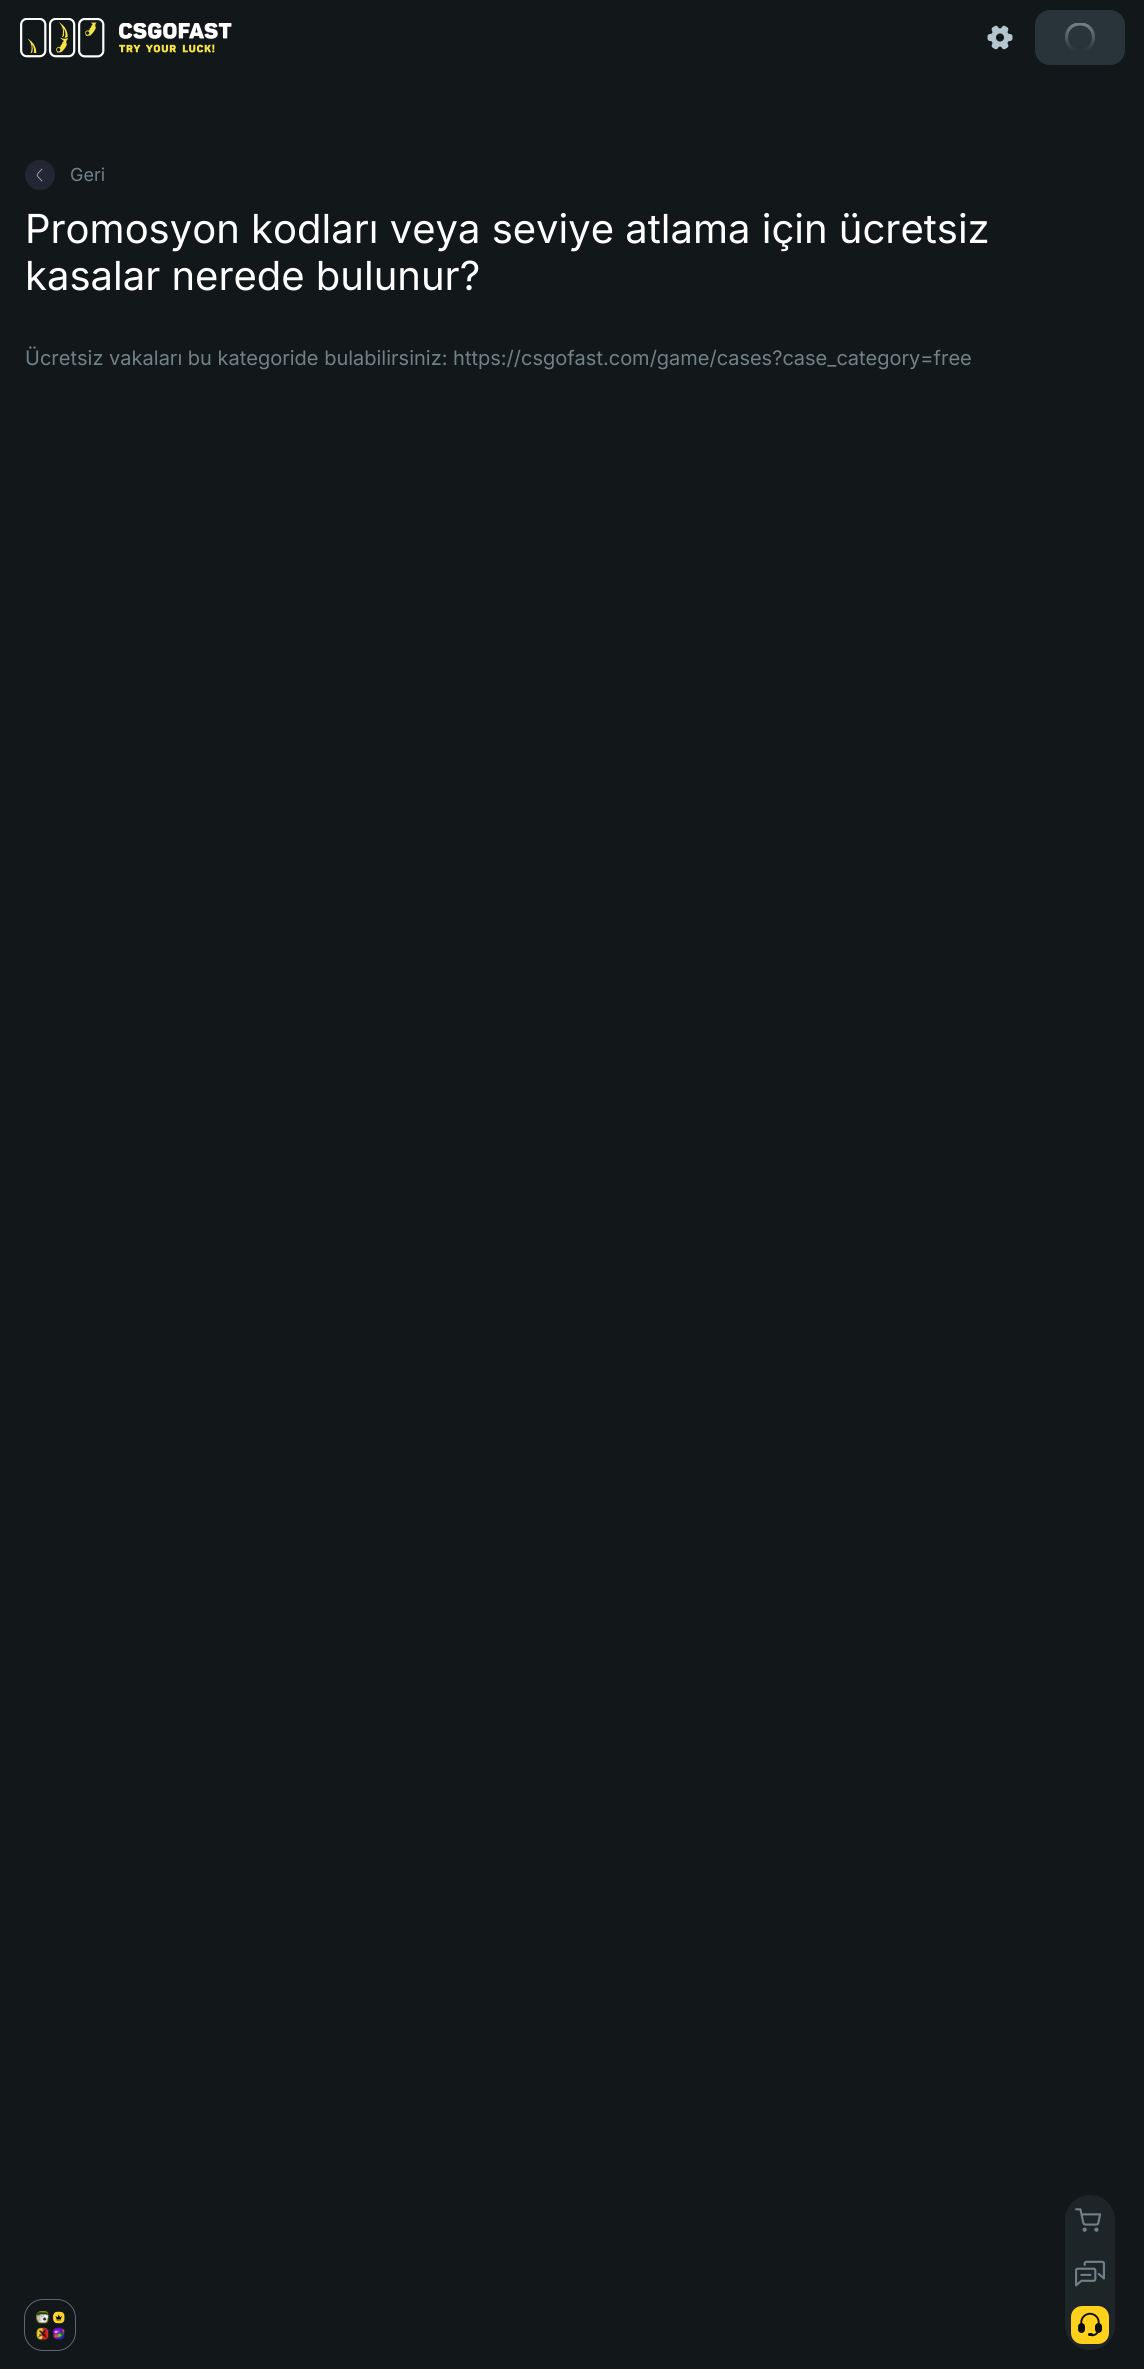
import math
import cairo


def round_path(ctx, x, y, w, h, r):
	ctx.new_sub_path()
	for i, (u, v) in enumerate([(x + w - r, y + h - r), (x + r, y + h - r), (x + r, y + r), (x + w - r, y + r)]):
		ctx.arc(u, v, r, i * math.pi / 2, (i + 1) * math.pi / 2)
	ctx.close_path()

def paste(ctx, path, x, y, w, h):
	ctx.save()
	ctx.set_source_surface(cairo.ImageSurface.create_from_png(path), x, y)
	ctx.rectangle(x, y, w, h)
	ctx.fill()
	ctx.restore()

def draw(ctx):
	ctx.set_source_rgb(0.071, 0.09, 0.098)
	ctx.paint()
	paste(ctx, 'media/1.png', 20, 18, 85, 40)
	paste(ctx, 'media/2.png', 119, 23, 113, 30)
	paste(ctx, 'media/3.png', 987, 25, 26, 25)
	ctx.set_source_rgb(0.161, 0.204, 0.227)
	round_path(ctx, 1035, 10, 90, 55, 15)
	ctx.fill()
	ctx.save()
	ctx.rectangle(1065, 23, 30, 30)
	ctx.clip()
	ctx.new_path()
	ctx.move_to(1080, 24)
	ctx.curve_to(1098, 24, 1098, 51, 1080, 51)
	ctx.curve_to(1062, 51, 1062, 24, 1080, 24)
	gradient = cairo.LinearGradient(1066, 24, 1066, 51)
	gradient.add_color_stop_rgba(0, 0.447, 0.506, 0.533, 1)
	gradient.add_color_stop_rgba(1, 0.161, 0.204, 0.227, 1)
	ctx.set_source(gradient)
	ctx.set_line_width(3.2)
	ctx.set_line_cap(cairo.LINE_CAP_ROUND)
	ctx.stroke()
	ctx.restore()
	ctx.set_source_rgb(0.141, 0.153, 0.2)
	ctx.arc(40, 175, 15, 0, 2 * math.pi)
	ctx.fill()
	ctx.new_path()
	ctx.move_to(42, 181)
	ctx.curve_to(35.5, 174, 35.5, 176, 42, 169)
	ctx.set_source_rgb(0.706, 0.718, 0.804)
	ctx.set_line_width(0.8)
	ctx.set_line_cap(cairo.LINE_CAP_ROUND)
	ctx.set_line_join(cairo.LINE_JOIN_ROUND)
	ctx.stroke()
	ctx.select_font_face('Inter')
	ctx.set_font_size(18)
	ctx.set_source_rgb(0.447, 0.506, 0.533)
	ctx.move_to(70, 181)
	ctx.show_text('Geri')
	ctx.set_font_size(40)
	ctx.set_source_rgb(1, 1, 1)
	ctx.move_to(25, 243)
	ctx.show_text('Promosyon kodları veya seviye atlama için ücretsiz')
	ctx.move_to(25, 290)
	ctx.show_text('kasalar nerede bulunur?')
	ctx.set_font_size(20)
	ctx.set_source_rgb(0.447, 0.506, 0.533)
	ctx.move_to(25, 365)
	ctx.show_text('Ücretsiz vakaları bu kategoride bulabilirsiniz: https://csgofast.com/game/cases?case_category=free')
	paste(ctx, 'media/4.png', 36, 2311, 14, 13)
	paste(ctx, 'media/5.png', 53, 2311, 12, 13)
	paste(ctx, 'media/6.png', 36, 2327, 13, 14)
	paste(ctx, 'media/7.png', 52, 2327, 13, 13)
	round_path(ctx, 24.5, 2299.5, 51, 51, 18.5)
	ctx.set_source_rgb(0.392, 0.388, 0.463)
	ctx.set_line_width(1)
	ctx.set_line_cap(cairo.LINE_CAP_BUTT)
	ctx.set_line_join(cairo.LINE_JOIN_MITER)
	ctx.stroke()
	ctx.set_source_rgb(0.114, 0.145, 0.161)
	round_path(ctx, 1065, 2195, 50, 155, 25)
	ctx.fill()
	paste(ctx, 'media/8.png', 1075, 2208, 27, 24)
	paste(ctx, 'media/9.png', 1075, 2260, 30, 27)
	paste(ctx, 'media/10.png', 1071, 2306, 38, 38)


surface = cairo.ImageSurface(cairo.FORMAT_RGB24, 1144, 2369)
ctx = cairo.Context(surface)
options = cairo.FontOptions()
options.set_hint_metrics(cairo.HINT_METRICS_OFF)
options.set_hint_style(cairo.HINT_STYLE_NONE)
ctx.set_font_options(options)
ctx.set_miter_limit(4)
draw(ctx)
surface.write_to_png('image.png')
